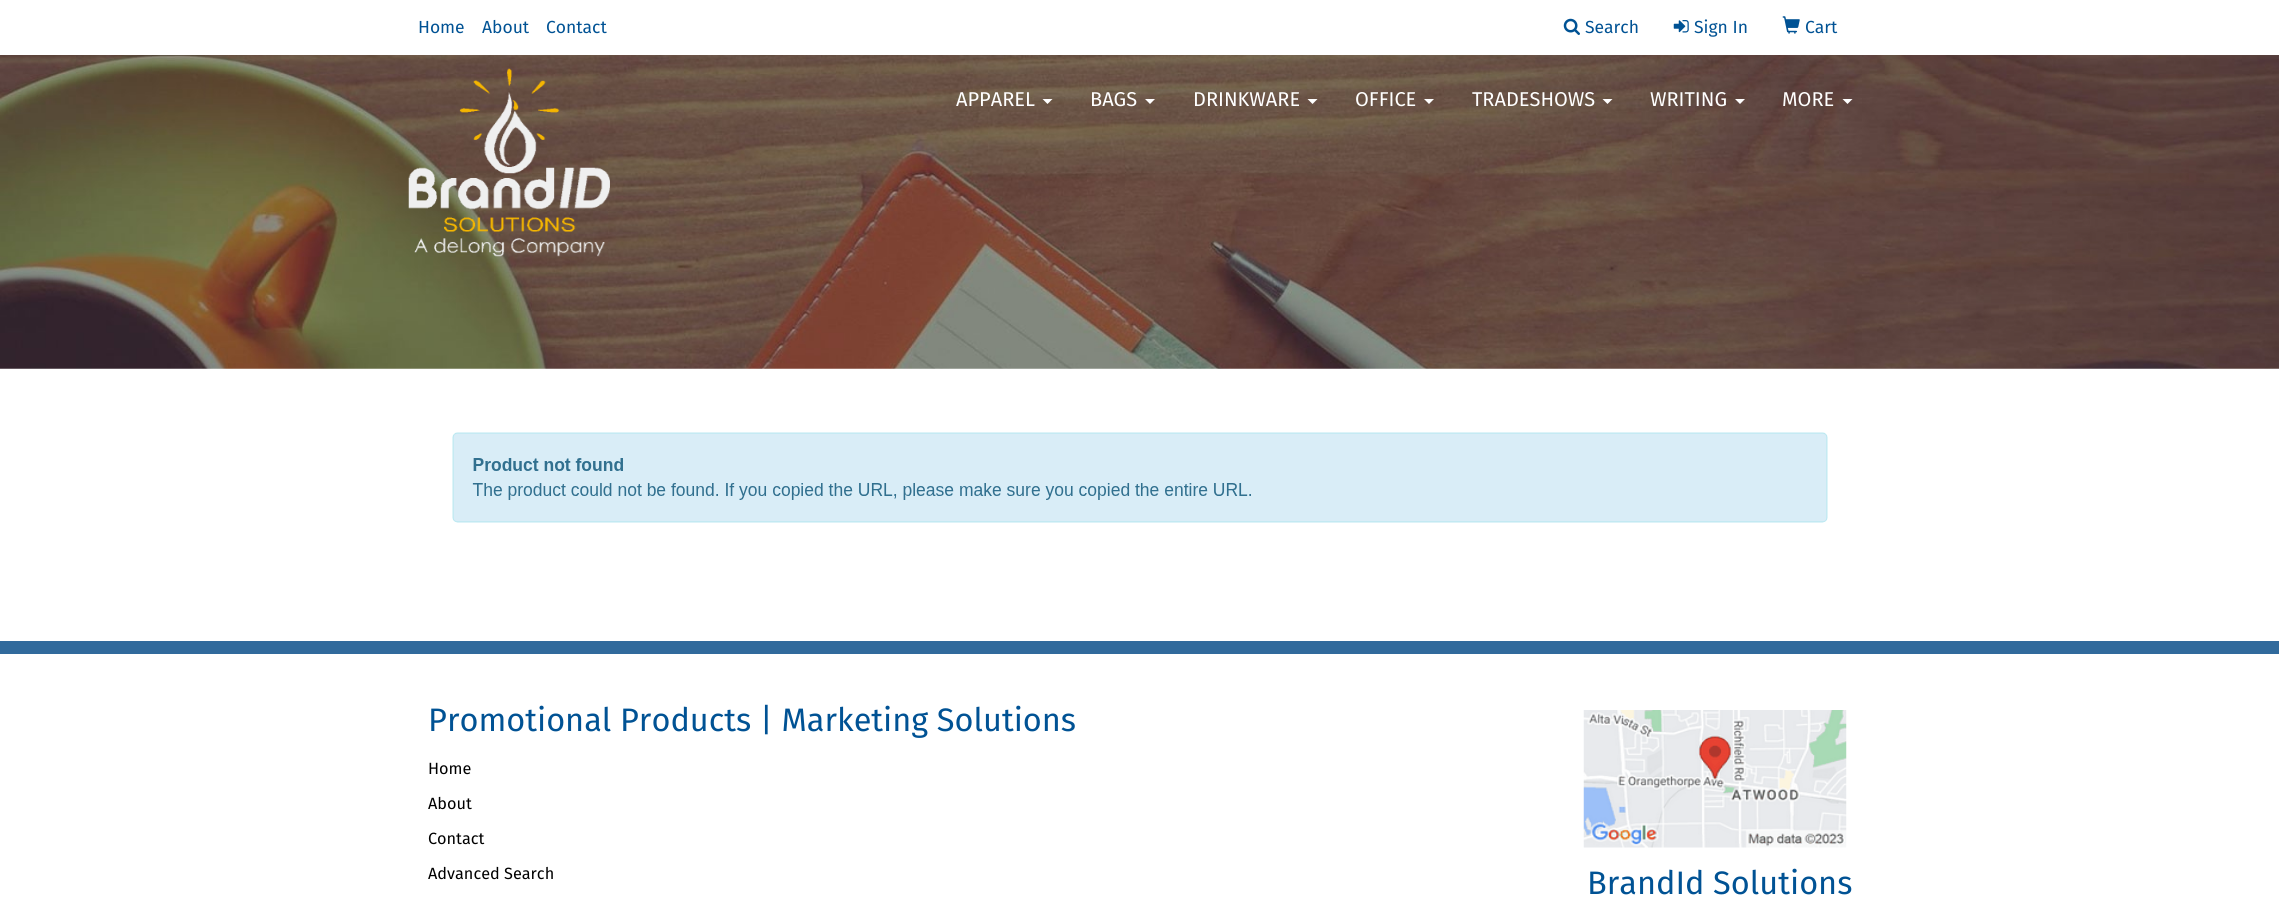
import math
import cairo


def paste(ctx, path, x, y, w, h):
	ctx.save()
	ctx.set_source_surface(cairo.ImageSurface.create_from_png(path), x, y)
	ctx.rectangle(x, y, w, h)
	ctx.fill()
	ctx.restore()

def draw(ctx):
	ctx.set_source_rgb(1, 1, 1)
	ctx.paint()
	ctx.select_font_face('Fira Sans')
	ctx.set_font_size(17.5)
	ctx.set_source_rgb(0, 0.322, 0.58)
	for x, y, s in [
		(418, 33, 'Home'),
		(482, 33, 'About'),
		(546, 33, 'Contact'),
	]:
		ctx.move_to(x, y)
		ctx.show_text(s)
	paste(ctx, 'media/1.png', 1563, 18, 17, 17)
	ctx.move_to(1585, 33)
	ctx.show_text('Search')
	paste(ctx, 'media/2.png', 1673, 20, 16, 13)
	ctx.move_to(1694, 33)
	ctx.show_text('Sign In')
	paste(ctx, 'media/3.png', 1782, 16, 18, 18)
	ctx.move_to(1805, 33)
	ctx.show_text('Cart')
	paste(ctx, 'media/5.png', 0, 55, 2279, 314)
	paste(ctx, 'media/4.png', 408, 68, 202, 189)
	ctx.set_font_size(20)
	ctx.set_source_rgb(1, 1, 1)
	ctx.move_to(956, 106)
	ctx.show_text('APPAREL')
	ctx.new_path()
	ctx.move_to(1042.5, 99)
	ctx.line_to(1052.5, 99)
	ctx.line_to(1047.5, 104)
	ctx.close_path()
	ctx.fill()
	ctx.move_to(1090, 106)
	ctx.show_text('BAGS')
	ctx.new_path()
	ctx.move_to(1145, 99)
	ctx.line_to(1155, 99)
	ctx.line_to(1150, 104)
	ctx.close_path()
	ctx.fill()
	ctx.move_to(1193, 106)
	ctx.show_text('DRINKWARE')
	ctx.new_path()
	ctx.move_to(1307.5, 99)
	ctx.line_to(1317.5, 99)
	ctx.line_to(1312.5, 104)
	ctx.close_path()
	ctx.fill()
	ctx.move_to(1355, 106)
	ctx.show_text('OFFICE')
	ctx.new_path()
	ctx.move_to(1424, 99)
	ctx.line_to(1434, 99)
	ctx.line_to(1429, 104)
	ctx.close_path()
	ctx.fill()
	ctx.move_to(1472, 106)
	ctx.show_text('TRADESHOWS')
	ctx.new_path()
	ctx.move_to(1602.5, 99)
	ctx.line_to(1612.5, 99)
	ctx.line_to(1607.5, 104)
	ctx.close_path()
	ctx.fill()
	ctx.move_to(1650, 106)
	ctx.show_text('WRITING')
	ctx.new_path()
	ctx.move_to(1735, 99)
	ctx.line_to(1745, 99)
	ctx.line_to(1740, 104)
	ctx.close_path()
	ctx.fill()
	ctx.move_to(1782, 106)
	ctx.show_text('MORE')
	ctx.new_path()
	ctx.move_to(1842.5, 99)
	ctx.line_to(1852.5, 99)
	ctx.line_to(1847.5, 104)
	ctx.close_path()
	ctx.fill()
	paste(ctx, 'media/6.png', 452, 432, 1376, 91)
	ctx.set_source_rgb(0.192, 0.416, 0.612)
	ctx.rectangle(0, 641, 2279, 13)
	ctx.fill()
	ctx.set_font_size(32.5)
	ctx.set_source_rgb(0, 0.322, 0.58)
	ctx.move_to(428, 731)
	ctx.show_text('Promotional Products | Marketing Solutions')
	ctx.set_font_size(16.25)
	ctx.set_source_rgb(0, 0, 0)
	for x, y, s in [
		(428, 774, 'Home'),
		(428, 809, 'About'),
		(428, 844, 'Contact'),
		(428, 879, 'Advanced Search'),
	]:
		ctx.move_to(x, y)
		ctx.show_text(s)
	paste(ctx, 'media/7.png', 1583, 710, 264, 138)
	ctx.set_font_size(32.5)
	ctx.set_source_rgb(0, 0.322, 0.58)
	ctx.move_to(1587, 894)
	ctx.show_text('BrandId Solutions')


surface = cairo.ImageSurface(cairo.FORMAT_RGB24, 2279, 897)
ctx = cairo.Context(surface)
options = cairo.FontOptions()
options.set_hint_metrics(cairo.HINT_METRICS_OFF)
options.set_hint_style(cairo.HINT_STYLE_NONE)
ctx.set_font_options(options)
ctx.set_miter_limit(4)
draw(ctx)
surface.write_to_png('image.png')
